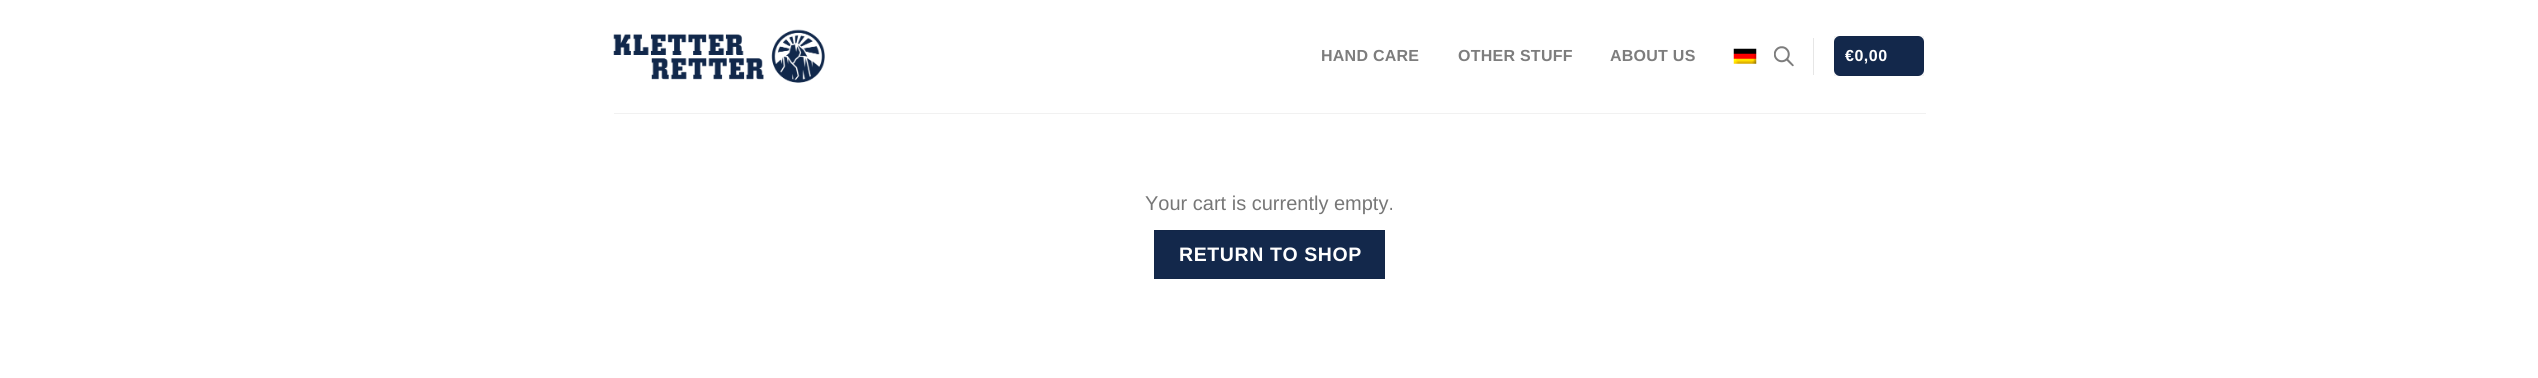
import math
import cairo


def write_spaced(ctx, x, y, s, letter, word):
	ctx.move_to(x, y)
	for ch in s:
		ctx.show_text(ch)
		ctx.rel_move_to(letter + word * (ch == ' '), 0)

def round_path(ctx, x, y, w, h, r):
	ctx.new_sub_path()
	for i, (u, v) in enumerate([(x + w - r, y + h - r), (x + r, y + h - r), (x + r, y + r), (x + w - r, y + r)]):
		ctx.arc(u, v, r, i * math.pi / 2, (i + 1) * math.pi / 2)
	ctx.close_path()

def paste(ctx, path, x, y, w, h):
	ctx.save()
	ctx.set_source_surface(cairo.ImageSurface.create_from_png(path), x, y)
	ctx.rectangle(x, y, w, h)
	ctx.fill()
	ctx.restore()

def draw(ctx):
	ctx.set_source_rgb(1, 1, 1)
	ctx.paint()
	paste(ctx, 'media/1.png', 613, 29, 212, 54)
	ctx.select_font_face('Liberation Sans', cairo.FONT_SLANT_NORMAL, cairo.FONT_WEIGHT_BOLD)
	ctx.set_font_size(16)
	ctx.set_source_rgb(0.49, 0.49, 0.49)
	for x, y, s in [
		(1321, 61, 'HAND CARE'),
		(1458, 61, 'OTHER STUFF'),
		(1610, 61, 'ABOUT US'),
	]:
		write_spaced(ctx, x, y, s, 0.25, 0)
	paste(ctx, 'media/2.png', 1733, 48, 24, 16)
	paste(ctx, 'media/3.png', 1774, 46, 20, 21)
	ctx.set_source_rgb(0.902, 0.902, 0.902)
	ctx.rectangle(1813, 38, 1, 37)
	ctx.fill()
	ctx.set_source_rgb(0.075, 0.157, 0.294)
	round_path(ctx, 1834, 36, 90, 40, 6)
	ctx.fill()
	ctx.rectangle(1834.5, 36.5, 89, 39)
	ctx.set_source_rgba(0, 0, 0, 0.05)
	ctx.set_line_width(1)
	ctx.stroke()
	ctx.set_source_rgb(1, 1, 1)
	write_spaced(ctx, 1845, 61, '€0,00', 0.5, 0)
	ctx.set_source_rgb(0.945, 0.945, 0.945)
	ctx.rectangle(614, 113, 1312, 1)
	ctx.fill()
	ctx.select_font_face('Liberation Sans')
	ctx.set_font_size(20)
	ctx.set_source_rgb(0.467, 0.467, 0.467)
	ctx.move_to(1145, 210)
	ctx.show_text('Your cart is currently empty.')
	ctx.set_source_rgb(0.075, 0.157, 0.294)
	ctx.rectangle(1154.5, 230.5, 230, 48)
	ctx.fill_preserve()
	ctx.set_source_rgb(0.071, 0.149, 0.278)
	ctx.stroke()
	ctx.select_font_face('Liberation Sans', cairo.FONT_SLANT_NORMAL, cairo.FONT_WEIGHT_BOLD)
	ctx.set_font_size(19.5)
	ctx.set_source_rgb(1, 1, 1)
	write_spaced(ctx, 1179, 261, 'RETURN TO SHOP', 0.6, 0)


surface = cairo.ImageSurface(cairo.FORMAT_RGB24, 2538, 378)
ctx = cairo.Context(surface)
options = cairo.FontOptions()
options.set_hint_metrics(cairo.HINT_METRICS_OFF)
options.set_hint_style(cairo.HINT_STYLE_NONE)
ctx.set_font_options(options)
ctx.set_miter_limit(4)
draw(ctx)
surface.write_to_png('image.png')
